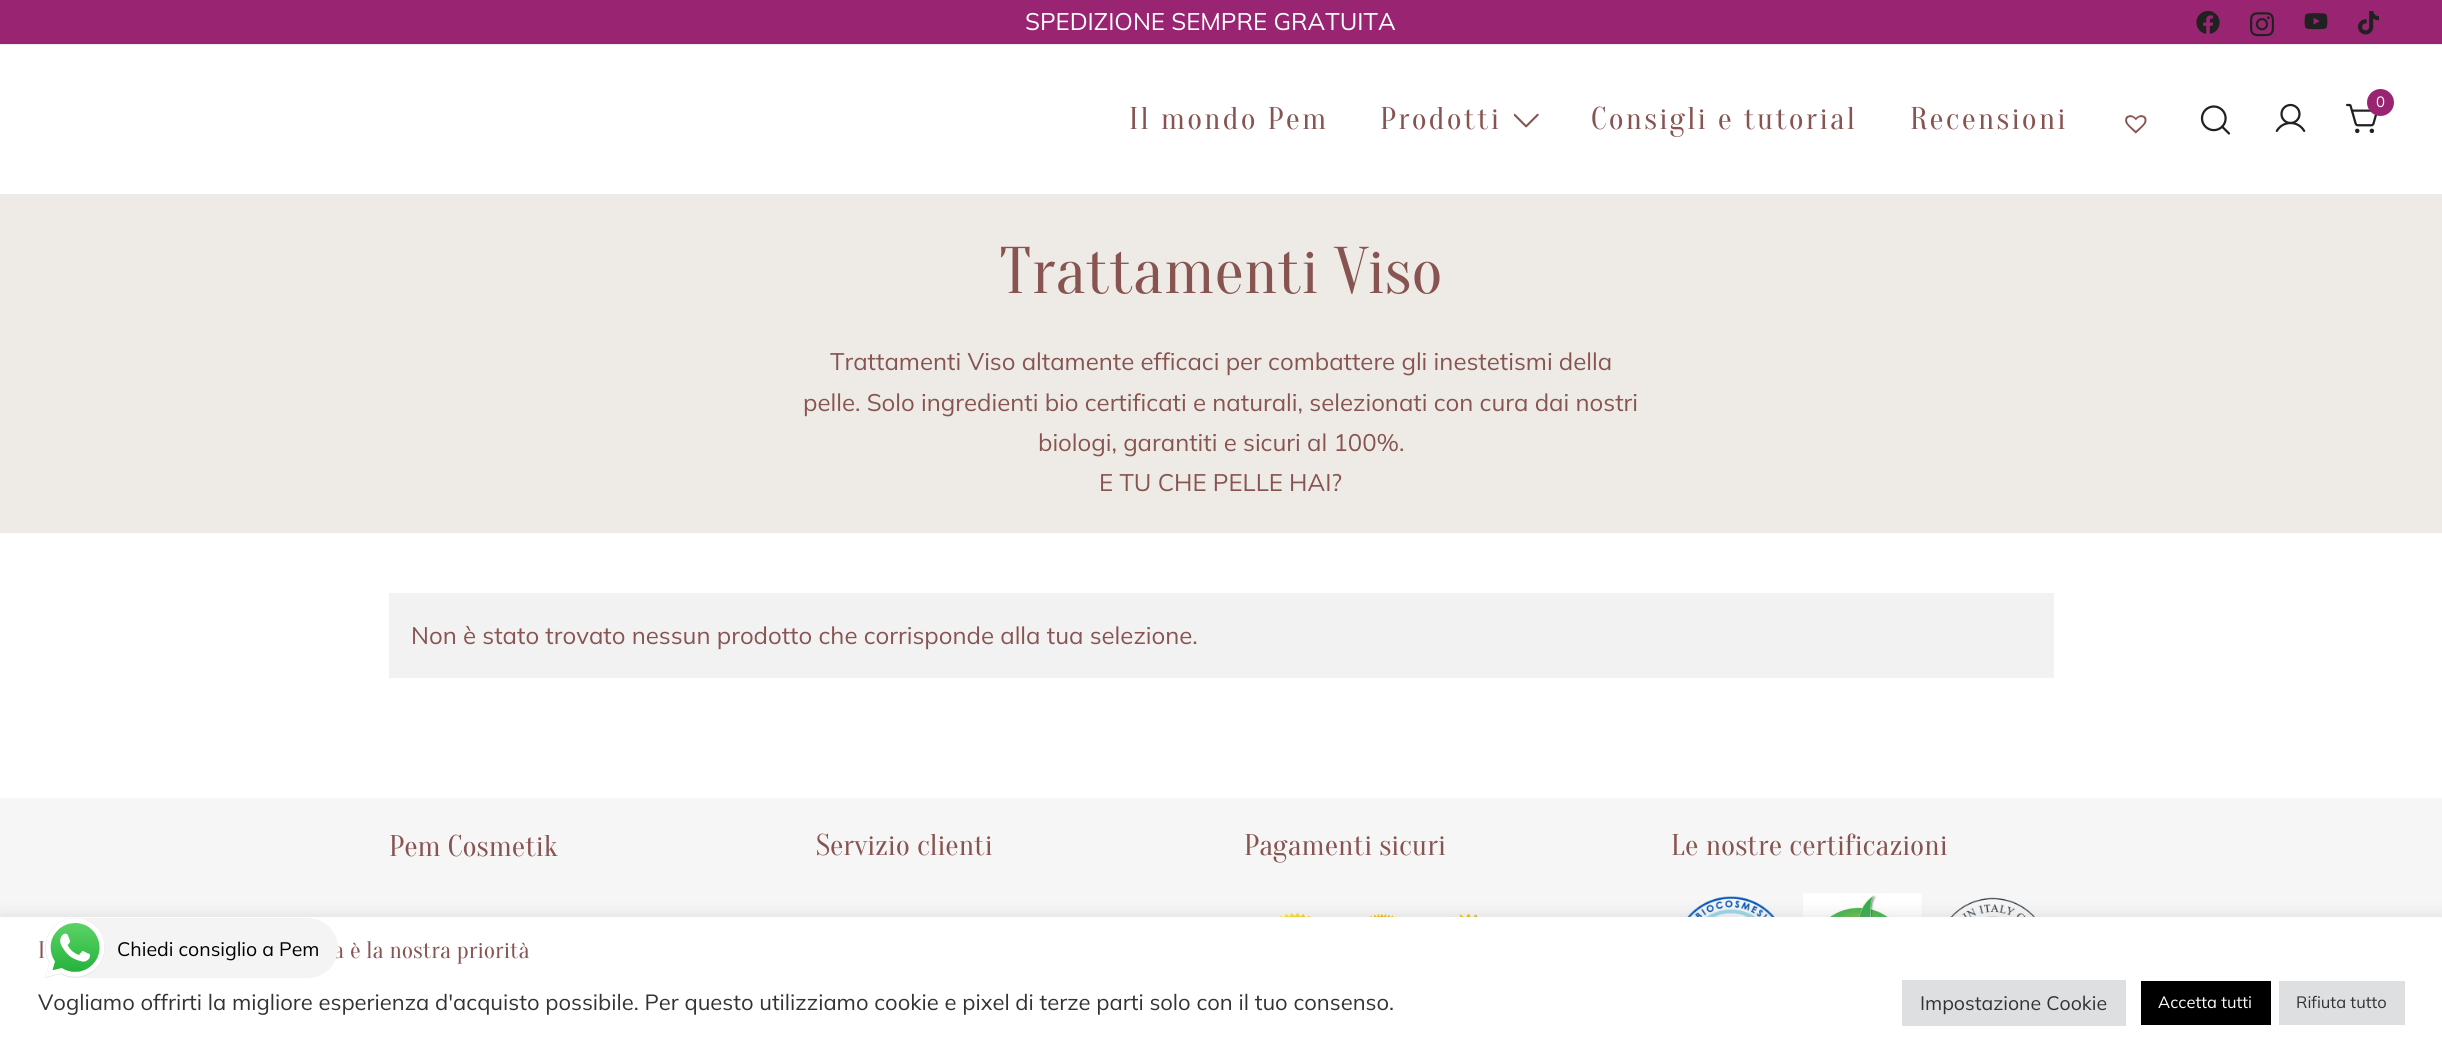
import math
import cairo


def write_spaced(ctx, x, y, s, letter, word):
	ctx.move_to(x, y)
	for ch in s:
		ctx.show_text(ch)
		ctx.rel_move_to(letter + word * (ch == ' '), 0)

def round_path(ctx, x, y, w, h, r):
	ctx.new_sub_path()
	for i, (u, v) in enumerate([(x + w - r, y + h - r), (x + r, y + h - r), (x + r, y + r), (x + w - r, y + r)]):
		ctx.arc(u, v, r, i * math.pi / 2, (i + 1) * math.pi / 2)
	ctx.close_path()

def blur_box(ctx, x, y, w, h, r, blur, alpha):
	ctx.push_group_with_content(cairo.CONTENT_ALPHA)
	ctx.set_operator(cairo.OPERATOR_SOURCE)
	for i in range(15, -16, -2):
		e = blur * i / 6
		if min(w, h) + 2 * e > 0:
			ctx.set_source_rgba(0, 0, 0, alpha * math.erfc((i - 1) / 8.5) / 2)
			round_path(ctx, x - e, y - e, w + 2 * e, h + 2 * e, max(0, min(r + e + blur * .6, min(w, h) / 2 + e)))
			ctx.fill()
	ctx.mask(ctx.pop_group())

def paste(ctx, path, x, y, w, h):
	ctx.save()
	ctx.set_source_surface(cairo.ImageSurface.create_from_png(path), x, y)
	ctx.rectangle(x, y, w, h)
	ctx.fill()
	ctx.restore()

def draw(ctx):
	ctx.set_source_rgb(1, 1, 1)
	ctx.paint()
	ctx.set_source_rgb(0.6, 0.145, 0.447)
	ctx.rectangle(0, 0, 2442, 44)
	ctx.fill()
	ctx.set_source_rgb(0.918, 0.918, 0.918)
	ctx.rectangle(0, 44, 2442, 1)
	ctx.fill()
	ctx.select_font_face('Mulish ExtraLight')
	ctx.set_font_size(24)
	ctx.set_source_rgb(1, 1, 1)
	ctx.move_to(1025, 30)
	ctx.show_text('SPEDIZIONE SEMPRE GRATUITA')
	paste(ctx, 'media/1.png', 2196, 11, 24, 23)
	paste(ctx, 'media/2.png', 2250, 12, 24, 25)
	paste(ctx, 'media/3.png', 2304, 13, 24, 17)
	paste(ctx, 'media/4.png', 2358, 11, 21, 24)
	ctx.set_source_rgb(0.918, 0.918, 0.918)
	ctx.rectangle(0, 194, 2442, 2)
	ctx.fill()
	paste(ctx, 'media/5.png', 2275, 103, 31, 29)
	paste(ctx, 'media/6.png', 2346, 103, 31, 31)
	ctx.set_source_rgb(0.6, 0.145, 0.447)
	ctx.arc(2380.5, 102.5, 12.5, 0, 2 * math.pi)
	ctx.fill_preserve()
	ctx.stroke()
	ctx.set_font_size(15)
	ctx.set_source_rgb(1, 1, 1)
	ctx.move_to(2376, 107)
	ctx.show_text('0')
	ctx.select_font_face('Oranienbaum')
	ctx.set_font_size(31.5)
	ctx.set_source_rgb(0.529, 0.329, 0.318)
	write_spaced(ctx, 1129, 129, 'Il mondo Pem', 2.25, 0)
	write_spaced(ctx, 1380, 129, 'Prodotti', 2.25, 0)
	paste(ctx, 'media/7.png', 1514, 113, 25, 15)
	write_spaced(ctx, 1591, 129, 'Consigli e tutorial', 2.25, 0)
	write_spaced(ctx, 1910, 129, 'Recensioni', 2.25, 0)
	paste(ctx, 'media/8.png', 2125, 115, 22, 19)
	paste(ctx, 'media/9.png', 2200, 105, 31, 30)
	ctx.set_source_rgb(0.933, 0.918, 0.902)
	ctx.rectangle(0, 196, 2442, 337)
	ctx.fill()
	ctx.set_font_size(66)
	ctx.set_source_rgb(0.529, 0.329, 0.318)
	ctx.move_to(999, 293)
	ctx.show_text('Trattamenti Viso')
	ctx.select_font_face('Mulish ExtraLight')
	ctx.set_font_size(24)
	for x, y, s in [
		(830, 370, 'Trattamenti Viso altamente efficaci per combattere gli inestetismi della'),
		(803, 411, 'pelle. Solo ingredienti bio certificati e naturali, selezionati con cura dai nostri'),
		(1038, 451, 'biologi, garantiti e sicuri al 100%.'),
		(1099, 491, 'E TU CHE PELLE HAI?'),
	]:
		ctx.move_to(x, y)
		ctx.show_text(s)
	ctx.set_source_rgb(0.949, 0.949, 0.949)
	ctx.rectangle(389, 593, 1665, 85)
	ctx.fill()
	ctx.set_source_rgb(0.529, 0.329, 0.318)
	ctx.move_to(411, 644)
	ctx.show_text('Non è stato trovato nessun prodotto che corrisponde alla tua selezione.')
	ctx.set_source_rgb(0.961, 0.961, 0.961)
	ctx.rectangle(0, 798, 2442, 119)
	ctx.fill()
	ctx.select_font_face('Oranienbaum')
	ctx.set_font_size(30)
	ctx.set_source_rgb(0.529, 0.329, 0.318)
	for x, y, s in [
		(389, 856, 'Pem Cosmetik'),
		(816, 855, 'Servizio clienti'),
		(1244, 855, 'Pagamenti sicuri'),
	]:
		ctx.move_to(x, y)
		ctx.show_text(s)
	paste(ctx, 'media/10.png', 1279, 912, 204, 5)
	ctx.move_to(1671, 855)
	ctx.show_text('Le nostre certificazioni')
	paste(ctx, 'media/11.png', 1687, 896, 88, 21)
	paste(ctx, 'media/12.png', 1803, 893, 119, 24)
	paste(ctx, 'media/13.png', 1950, 897, 86, 20)
	ctx.set_source_rgb(0.675, 0.671, 0.671)
	blur_box(ctx, 0, 915, 2442, 137, 0, 7.5, 0.3)
	ctx.set_source_rgb(1, 1, 1)
	ctx.rectangle(0, 917, 2442, 135)
	ctx.fill()
	ctx.set_font_size(24)
	ctx.set_source_rgb(0.529, 0.329, 0.318)
	ctx.move_to(38, 958)
	ctx.show_text('I')
	ctx.move_to(333, 958)
	ctx.show_text('a è la nostra priorità')
	ctx.select_font_face('Mulish ExtraLight')
	ctx.set_font_size(22)
	ctx.set_source_rgb(0.2, 0.2, 0.2)
	ctx.move_to(38, 1010)
	ctx.show_text('Vogliamo offrirti la migliore esperienza d\'acquisto possibile. Per questo utilizziamo cookie e pixel di terze parti solo con il tuo consenso.')
	ctx.set_source_rgb(0.871, 0.875, 0.878)
	ctx.rectangle(1902, 980, 224, 46)
	ctx.fill()
	ctx.set_font_size(19.5)
	ctx.set_source_rgb(0.2, 0.2, 0.2)
	ctx.move_to(1920, 1010)
	ctx.show_text('Impostazione Cookie')
	ctx.set_source_rgb(0, 0, 0)
	ctx.rectangle(2141, 981, 130, 44)
	ctx.fill()
	ctx.set_font_size(16.5)
	ctx.set_source_rgb(1, 1, 1)
	ctx.move_to(2158, 1008)
	ctx.show_text('Accetta tutti')
	ctx.set_source_rgb(0.871, 0.875, 0.878)
	ctx.rectangle(2279, 981, 126, 44)
	ctx.fill()
	ctx.set_source_rgb(0.2, 0.2, 0.2)
	ctx.move_to(2296, 1008)
	ctx.show_text('Rifiuta tutto')
	ctx.set_source_rgb(0.957, 0.957, 0.957)
	round_path(ctx, 45, 918, 293, 60, 30)
	ctx.fill()
	paste(ctx, 'media/14.png', 45, 918, 60, 60)
	ctx.set_font_size(19.5)
	ctx.set_source_rgb(0, 0, 0)
	ctx.move_to(117, 956)
	ctx.show_text('Chiedi consiglio a Pem')


surface = cairo.ImageSurface(cairo.FORMAT_RGB24, 2442, 1052)
ctx = cairo.Context(surface)
options = cairo.FontOptions()
options.set_hint_metrics(cairo.HINT_METRICS_OFF)
options.set_hint_style(cairo.HINT_STYLE_NONE)
ctx.set_font_options(options)
ctx.set_miter_limit(4)
draw(ctx)
surface.write_to_png('image.png')
